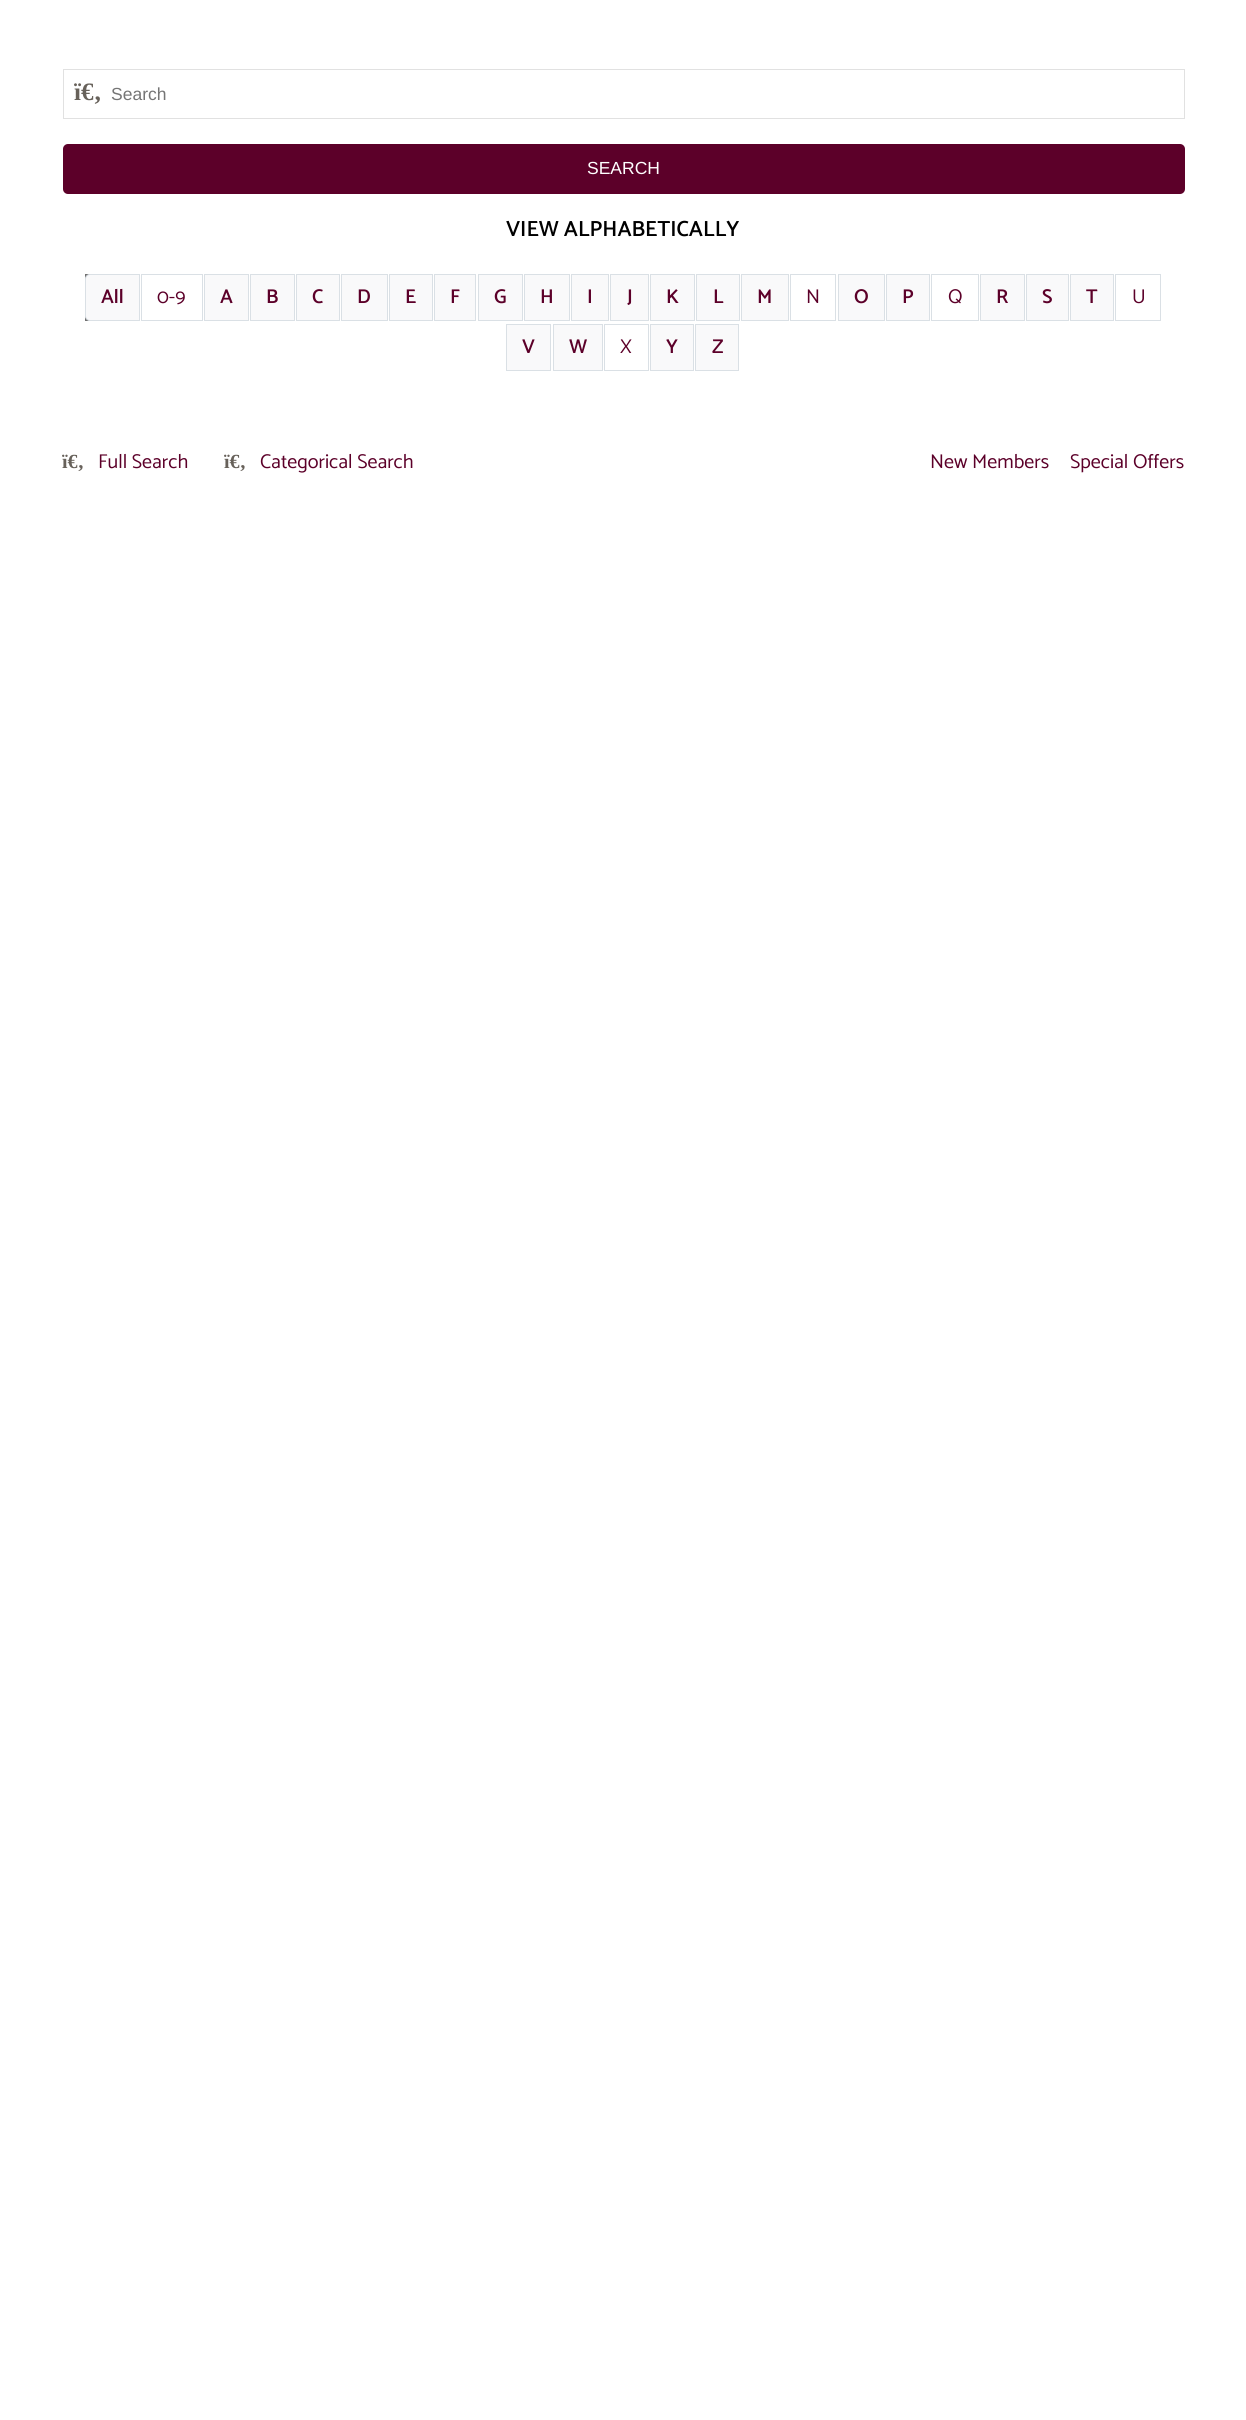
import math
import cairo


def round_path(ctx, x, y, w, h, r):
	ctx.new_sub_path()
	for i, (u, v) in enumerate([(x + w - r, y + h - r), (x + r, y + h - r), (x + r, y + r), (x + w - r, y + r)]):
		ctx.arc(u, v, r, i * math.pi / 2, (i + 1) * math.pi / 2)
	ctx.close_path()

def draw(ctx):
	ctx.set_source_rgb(1, 1, 1)
	ctx.paint()
	ctx.rectangle(63.5, 69.5, 1121, 49)
	ctx.set_source_rgb(0.882, 0.882, 0.882)
	ctx.set_line_width(1)
	ctx.stroke()
	ctx.select_font_face('Liberation Serif', cairo.FONT_SLANT_NORMAL, cairo.FONT_WEIGHT_BOLD)
	ctx.set_font_size(25)
	ctx.set_source_rgb(0.404, 0.38, 0.353)
	ctx.move_to(74, 100)
	ctx.show_text('ï€‚')
	ctx.select_font_face('Liberation Sans')
	ctx.set_font_size(17.5)
	ctx.set_source_rgb(0.459, 0.459, 0.459)
	ctx.move_to(111, 100)
	ctx.show_text('Search')
	ctx.set_source_rgb(0.361, 0, 0.161)
	round_path(ctx, 63, 144, 1122, 50, 5)
	ctx.fill()
	ctx.set_source_rgb(1, 1, 1)
	ctx.move_to(587, 174)
	ctx.show_text('SEARCH')
	ctx.select_font_face('Catamaran SemiBold')
	ctx.set_font_size(22)
	ctx.set_source_rgb(0, 0, 0)
	ctx.move_to(506, 236)
	ctx.show_text('VIEW ALPHABETICALLY')
	ctx.set_source_rgb(0.443, 0.443, 0.443)
	ctx.rectangle(85, 274, 5, 47)
	ctx.fill()
	ctx.set_source_rgb(0.973, 0.976, 0.98)
	ctx.new_path()
	ctx.move_to(90, 274.5)
	ctx.line_to(139.5, 274.5)
	ctx.line_to(139.5, 320.5)
	ctx.line_to(90, 320.5)
	ctx.curve_to(87.5, 320.5, 85.5, 318.5, 85.5, 316)
	ctx.line_to(85.5, 279)
	ctx.curve_to(85.5, 276.5, 87.5, 274.5, 90, 274.5)
	ctx.close_path()
	ctx.fill_preserve()
	ctx.set_source_rgb(0.855, 0.878, 0.898)
	ctx.stroke()
	ctx.set_font_size(20)
	ctx.set_source_rgb(0.361, 0, 0.161)
	ctx.move_to(101, 303)
	ctx.show_text('All')
	ctx.rectangle(141.5, 274.5, 61, 46)
	ctx.set_source_rgb(0.855, 0.878, 0.898)
	ctx.stroke()
	ctx.select_font_face('Catamaran')
	ctx.set_source_rgb(0.361, 0, 0.161)
	ctx.move_to(157, 303)
	ctx.show_text('0-9')
	ctx.set_source_rgb(0.973, 0.976, 0.98)
	ctx.rectangle(204.5, 274.5, 44, 46)
	ctx.fill_preserve()
	ctx.set_source_rgb(0.855, 0.878, 0.898)
	ctx.stroke()
	ctx.select_font_face('Catamaran SemiBold')
	ctx.set_source_rgb(0.361, 0, 0.161)
	ctx.move_to(220, 303)
	ctx.show_text('A')
	ctx.set_source_rgb(0.973, 0.976, 0.98)
	ctx.rectangle(250.5, 274.5, 44, 46)
	ctx.fill_preserve()
	ctx.set_source_rgb(0.855, 0.878, 0.898)
	ctx.stroke()
	ctx.set_source_rgb(0.361, 0, 0.161)
	ctx.move_to(266, 303)
	ctx.show_text('B')
	ctx.set_source_rgb(0.973, 0.976, 0.98)
	ctx.rectangle(296.5, 274.5, 43, 46)
	ctx.fill_preserve()
	ctx.set_source_rgb(0.855, 0.878, 0.898)
	ctx.stroke()
	ctx.set_source_rgb(0.361, 0, 0.161)
	ctx.move_to(312, 303)
	ctx.show_text('C')
	ctx.set_source_rgb(0.973, 0.976, 0.98)
	ctx.rectangle(341.5, 274.5, 46, 46)
	ctx.fill_preserve()
	ctx.set_source_rgb(0.855, 0.878, 0.898)
	ctx.stroke()
	ctx.set_source_rgb(0.361, 0, 0.161)
	ctx.move_to(357, 303)
	ctx.show_text('D')
	ctx.set_source_rgb(0.973, 0.976, 0.98)
	ctx.rectangle(389.5, 274.5, 43, 46)
	ctx.fill_preserve()
	ctx.set_source_rgb(0.855, 0.878, 0.898)
	ctx.stroke()
	ctx.set_source_rgb(0.361, 0, 0.161)
	ctx.move_to(405, 303)
	ctx.show_text('E')
	ctx.set_source_rgb(0.973, 0.976, 0.98)
	ctx.rectangle(434.5, 274.5, 41, 46)
	ctx.fill_preserve()
	ctx.set_source_rgb(0.855, 0.878, 0.898)
	ctx.stroke()
	ctx.set_source_rgb(0.361, 0, 0.161)
	ctx.move_to(450, 303)
	ctx.show_text('F')
	ctx.set_source_rgb(0.973, 0.976, 0.98)
	ctx.rectangle(478.5, 274.5, 44, 46)
	ctx.fill_preserve()
	ctx.set_source_rgb(0.855, 0.878, 0.898)
	ctx.stroke()
	ctx.set_source_rgb(0.361, 0, 0.161)
	ctx.move_to(494, 303)
	ctx.show_text('G')
	ctx.set_source_rgb(0.973, 0.976, 0.98)
	ctx.rectangle(524.5, 274.5, 45, 46)
	ctx.fill_preserve()
	ctx.set_source_rgb(0.855, 0.878, 0.898)
	ctx.stroke()
	ctx.set_source_rgb(0.361, 0, 0.161)
	ctx.move_to(540, 303)
	ctx.show_text('H')
	ctx.set_source_rgb(0.973, 0.976, 0.98)
	ctx.rectangle(571.5, 274.5, 37, 46)
	ctx.fill_preserve()
	ctx.set_source_rgb(0.855, 0.878, 0.898)
	ctx.stroke()
	ctx.set_source_rgb(0.361, 0, 0.161)
	ctx.move_to(587, 303)
	ctx.show_text('I')
	ctx.set_source_rgb(0.973, 0.976, 0.98)
	ctx.rectangle(610.5, 274.5, 38, 46)
	ctx.fill_preserve()
	ctx.set_source_rgb(0.855, 0.878, 0.898)
	ctx.stroke()
	ctx.set_source_rgb(0.361, 0, 0.161)
	ctx.move_to(627, 303)
	ctx.show_text('J')
	ctx.set_source_rgb(0.973, 0.976, 0.98)
	ctx.rectangle(650.5, 274.5, 44, 46)
	ctx.fill_preserve()
	ctx.set_source_rgb(0.855, 0.878, 0.898)
	ctx.stroke()
	ctx.set_source_rgb(0.361, 0, 0.161)
	ctx.move_to(666, 303)
	ctx.show_text('K')
	ctx.set_source_rgb(0.973, 0.976, 0.98)
	ctx.rectangle(696.5, 274.5, 43, 46)
	ctx.fill_preserve()
	ctx.set_source_rgb(0.855, 0.878, 0.898)
	ctx.stroke()
	ctx.set_source_rgb(0.361, 0, 0.161)
	ctx.move_to(713, 303)
	ctx.show_text('L')
	ctx.set_source_rgb(0.973, 0.976, 0.98)
	ctx.rectangle(741.5, 274.5, 47, 46)
	ctx.fill_preserve()
	ctx.set_source_rgb(0.855, 0.878, 0.898)
	ctx.stroke()
	ctx.set_source_rgb(0.361, 0, 0.161)
	ctx.move_to(757, 303)
	ctx.show_text('M')
	ctx.rectangle(790.5, 274.5, 45, 46)
	ctx.set_source_rgb(0.855, 0.878, 0.898)
	ctx.stroke()
	ctx.select_font_face('Catamaran')
	ctx.set_source_rgb(0.361, 0, 0.161)
	ctx.move_to(806, 303)
	ctx.show_text('N')
	ctx.set_source_rgb(0.973, 0.976, 0.98)
	ctx.rectangle(838.5, 274.5, 46, 46)
	ctx.fill_preserve()
	ctx.set_source_rgb(0.855, 0.878, 0.898)
	ctx.stroke()
	ctx.select_font_face('Catamaran SemiBold')
	ctx.set_source_rgb(0.361, 0, 0.161)
	ctx.move_to(854, 303)
	ctx.show_text('O')
	ctx.set_source_rgb(0.973, 0.976, 0.98)
	ctx.rectangle(886.5, 274.5, 43, 46)
	ctx.fill_preserve()
	ctx.set_source_rgb(0.855, 0.878, 0.898)
	ctx.stroke()
	ctx.set_source_rgb(0.361, 0, 0.161)
	ctx.move_to(902, 303)
	ctx.show_text('P')
	ctx.rectangle(931.5, 274.5, 47, 46)
	ctx.set_source_rgb(0.855, 0.878, 0.898)
	ctx.stroke()
	ctx.select_font_face('Catamaran')
	ctx.set_source_rgb(0.361, 0, 0.161)
	ctx.move_to(948, 303)
	ctx.show_text('Q')
	ctx.set_source_rgb(0.973, 0.976, 0.98)
	ctx.rectangle(980.5, 274.5, 44, 46)
	ctx.fill_preserve()
	ctx.set_source_rgb(0.855, 0.878, 0.898)
	ctx.stroke()
	ctx.select_font_face('Catamaran SemiBold')
	ctx.set_source_rgb(0.361, 0, 0.161)
	ctx.move_to(996, 303)
	ctx.show_text('R')
	ctx.set_source_rgb(0.973, 0.976, 0.98)
	ctx.rectangle(1026.5, 274.5, 42, 46)
	ctx.fill_preserve()
	ctx.set_source_rgb(0.855, 0.878, 0.898)
	ctx.stroke()
	ctx.set_source_rgb(0.361, 0, 0.161)
	ctx.move_to(1042, 303)
	ctx.show_text('S')
	ctx.set_source_rgb(0.973, 0.976, 0.98)
	ctx.rectangle(1070.5, 274.5, 43, 46)
	ctx.fill_preserve()
	ctx.set_source_rgb(0.855, 0.878, 0.898)
	ctx.stroke()
	ctx.set_source_rgb(0.361, 0, 0.161)
	ctx.move_to(1086, 303)
	ctx.show_text('T')
	ctx.rectangle(1115.5, 274.5, 45, 46)
	ctx.set_source_rgb(0.855, 0.878, 0.898)
	ctx.stroke()
	ctx.select_font_face('Catamaran')
	ctx.set_source_rgb(0.361, 0, 0.161)
	ctx.move_to(1132, 303)
	ctx.show_text('U')
	ctx.set_source_rgb(0.973, 0.976, 0.98)
	ctx.rectangle(506.5, 324.5, 44, 46)
	ctx.fill_preserve()
	ctx.set_source_rgb(0.855, 0.878, 0.898)
	ctx.stroke()
	ctx.select_font_face('Catamaran SemiBold')
	ctx.set_source_rgb(0.361, 0, 0.161)
	ctx.move_to(522, 353)
	ctx.show_text('V')
	ctx.set_source_rgb(0.973, 0.976, 0.98)
	ctx.rectangle(553.5, 324.5, 49, 46)
	ctx.fill_preserve()
	ctx.set_source_rgb(0.855, 0.878, 0.898)
	ctx.stroke()
	ctx.set_source_rgb(0.361, 0, 0.161)
	ctx.move_to(569, 353)
	ctx.show_text('W')
	ctx.rectangle(604.5, 324.5, 44, 46)
	ctx.set_source_rgb(0.855, 0.878, 0.898)
	ctx.stroke()
	ctx.select_font_face('Catamaran')
	ctx.set_source_rgb(0.361, 0, 0.161)
	ctx.move_to(620, 353)
	ctx.show_text('X')
	ctx.set_source_rgb(0.973, 0.976, 0.98)
	ctx.rectangle(650.5, 324.5, 43, 46)
	ctx.fill_preserve()
	ctx.set_source_rgb(0.855, 0.878, 0.898)
	ctx.stroke()
	ctx.select_font_face('Catamaran SemiBold')
	ctx.set_source_rgb(0.361, 0, 0.161)
	ctx.move_to(666, 353)
	ctx.show_text('Y')
	ctx.set_source_rgb(0.973, 0.976, 0.98)
	ctx.rectangle(695.5, 324.5, 43, 46)
	ctx.fill_preserve()
	ctx.set_source_rgb(0.855, 0.878, 0.898)
	ctx.stroke()
	ctx.set_source_rgb(0.361, 0, 0.161)
	ctx.move_to(712, 353)
	ctx.show_text('Z')
	ctx.select_font_face('Liberation Serif', cairo.FONT_SLANT_NORMAL, cairo.FONT_WEIGHT_BOLD)
	ctx.set_source_rgb(0.404, 0.38, 0.353)
	ctx.move_to(62, 468)
	ctx.show_text('ï€‚')
	ctx.select_font_face('Catamaran')
	ctx.set_source_rgb(0.361, 0, 0.161)
	ctx.move_to(98, 468)
	ctx.show_text('Full Search')
	ctx.select_font_face('Liberation Serif', cairo.FONT_SLANT_NORMAL, cairo.FONT_WEIGHT_BOLD)
	ctx.set_source_rgb(0.404, 0.38, 0.353)
	ctx.move_to(224, 468)
	ctx.show_text('ï€‚')
	ctx.select_font_face('Catamaran')
	ctx.set_source_rgb(0.361, 0, 0.161)
	for x, y, s in [
		(260, 468, 'Categorical Search'),
		(930, 468, 'New Members'),
		(1070, 468, 'Special Offers'),
	]:
		ctx.move_to(x, y)
		ctx.show_text(s)


surface = cairo.ImageSurface(cairo.FORMAT_RGB24, 1246, 2420)
ctx = cairo.Context(surface)
options = cairo.FontOptions()
options.set_hint_metrics(cairo.HINT_METRICS_OFF)
options.set_hint_style(cairo.HINT_STYLE_NONE)
ctx.set_font_options(options)
ctx.set_miter_limit(4)
draw(ctx)
surface.write_to_png('image.png')
